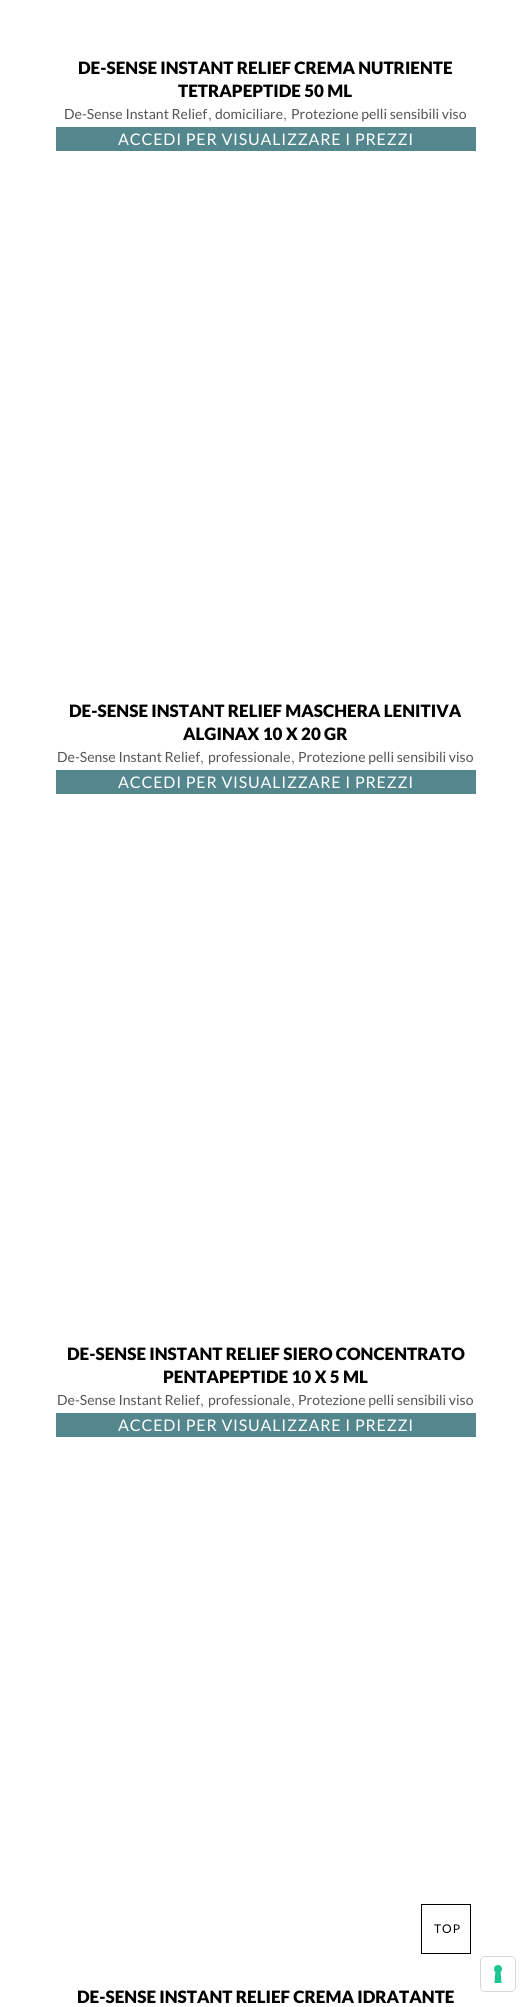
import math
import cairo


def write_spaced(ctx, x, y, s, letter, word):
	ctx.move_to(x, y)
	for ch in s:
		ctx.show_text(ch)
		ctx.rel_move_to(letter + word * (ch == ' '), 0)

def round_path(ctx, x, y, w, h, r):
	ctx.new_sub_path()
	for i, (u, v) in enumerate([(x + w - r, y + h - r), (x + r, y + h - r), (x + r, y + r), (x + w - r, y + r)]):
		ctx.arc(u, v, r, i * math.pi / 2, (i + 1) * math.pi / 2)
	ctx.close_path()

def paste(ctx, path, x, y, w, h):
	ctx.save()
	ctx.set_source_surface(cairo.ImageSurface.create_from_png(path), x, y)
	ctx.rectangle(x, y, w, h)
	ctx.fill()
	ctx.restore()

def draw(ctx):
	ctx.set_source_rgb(1, 1, 1)
	ctx.paint()
	ctx.select_font_face('Lato Black')
	ctx.set_font_size(17)
	ctx.set_source_rgb(0, 0, 0)
	ctx.move_to(78, 74)
	ctx.show_text('DE-SENSE INSTANT RELIEF CREMA NUTRIENTE')
	ctx.move_to(178, 97)
	ctx.show_text('TETRAPEPTIDE 50 ML')
	ctx.select_font_face('Lato')
	ctx.set_font_size(14)
	ctx.set_source_rgb(0.329, 0.329, 0.329)
	ctx.move_to(64, 119)
	ctx.show_text('De-Sense Instant Relief')
	ctx.select_font_face('Cormorant Medium')
	ctx.set_font_size(17)
	ctx.set_source_rgb(0.514, 0.514, 0.514)
	ctx.move_to(208, 119)
	ctx.show_text(',')
	ctx.select_font_face('Lato')
	ctx.set_font_size(14)
	ctx.set_source_rgb(0.329, 0.329, 0.329)
	ctx.move_to(215, 119)
	ctx.show_text('domiciliare')
	ctx.select_font_face('Cormorant Medium')
	ctx.set_font_size(17)
	ctx.set_source_rgb(0.514, 0.514, 0.514)
	ctx.move_to(283, 119)
	ctx.show_text(',')
	ctx.select_font_face('Lato')
	ctx.set_font_size(14)
	ctx.set_source_rgb(0.329, 0.329, 0.329)
	ctx.move_to(291, 119)
	ctx.show_text('Protezione pelli sensibili viso')
	ctx.set_source_rgb(0.325, 0.529, 0.553)
	ctx.rectangle(56, 127, 420, 24)
	ctx.fill()
	ctx.set_font_size(16)
	ctx.set_source_rgb(1, 1, 1)
	write_spaced(ctx, 118, 145, 'ACCEDI PER VISUALIZZARE I PREZZI', 0.8, 0)
	ctx.select_font_face('Lato Black')
	ctx.set_font_size(17)
	ctx.set_source_rgb(0, 0, 0)
	ctx.move_to(69, 717)
	ctx.show_text('DE-SENSE INSTANT RELIEF MASCHERA LENITIVA')
	ctx.move_to(183, 740)
	ctx.show_text('ALGINAX 10 X 20 GR')
	ctx.select_font_face('Lato')
	ctx.set_font_size(14)
	ctx.set_source_rgb(0.329, 0.329, 0.329)
	ctx.move_to(57, 762)
	ctx.show_text('De-Sense Instant Relief')
	ctx.select_font_face('Cormorant Medium')
	ctx.set_font_size(17)
	ctx.set_source_rgb(0.514, 0.514, 0.514)
	ctx.move_to(200, 762)
	ctx.show_text(',')
	ctx.select_font_face('Lato')
	ctx.set_font_size(14)
	ctx.set_source_rgb(0.329, 0.329, 0.329)
	ctx.move_to(208, 762)
	ctx.show_text('professionale')
	ctx.select_font_face('Cormorant Medium')
	ctx.set_font_size(17)
	ctx.set_source_rgb(0.514, 0.514, 0.514)
	ctx.move_to(291, 762)
	ctx.show_text(',')
	ctx.select_font_face('Lato')
	ctx.set_font_size(14)
	ctx.set_source_rgb(0.329, 0.329, 0.329)
	ctx.move_to(298, 762)
	ctx.show_text('Protezione pelli sensibili viso')
	ctx.set_source_rgb(0.325, 0.529, 0.553)
	ctx.rectangle(56, 770, 420, 24)
	ctx.fill()
	ctx.set_font_size(16)
	ctx.set_source_rgb(1, 1, 1)
	write_spaced(ctx, 118, 788, 'ACCEDI PER VISUALIZZARE I PREZZI', 0.8, 0)
	ctx.select_font_face('Lato Black')
	ctx.set_font_size(17)
	ctx.set_source_rgb(0, 0, 0)
	ctx.move_to(67, 1360)
	ctx.show_text('DE-SENSE INSTANT RELIEF SIERO CONCENTRATO')
	ctx.move_to(163, 1383)
	ctx.show_text('PENTAPEPTIDE 10 X 5 ML')
	ctx.select_font_face('Lato')
	ctx.set_font_size(14)
	ctx.set_source_rgb(0.329, 0.329, 0.329)
	ctx.move_to(57, 1405)
	ctx.show_text('De-Sense Instant Relief')
	ctx.select_font_face('Cormorant Medium')
	ctx.set_font_size(17)
	ctx.set_source_rgb(0.514, 0.514, 0.514)
	ctx.move_to(200, 1405)
	ctx.show_text(',')
	ctx.select_font_face('Lato')
	ctx.set_font_size(14)
	ctx.set_source_rgb(0.329, 0.329, 0.329)
	ctx.move_to(208, 1405)
	ctx.show_text('professionale')
	ctx.select_font_face('Cormorant Medium')
	ctx.set_font_size(17)
	ctx.set_source_rgb(0.514, 0.514, 0.514)
	ctx.move_to(291, 1405)
	ctx.show_text(',')
	ctx.select_font_face('Lato')
	ctx.set_font_size(14)
	ctx.set_source_rgb(0.329, 0.329, 0.329)
	ctx.move_to(298, 1405)
	ctx.show_text('Protezione pelli sensibili viso')
	ctx.set_source_rgb(0.325, 0.529, 0.553)
	ctx.rectangle(56, 1413, 420, 24)
	ctx.fill()
	ctx.set_font_size(16)
	ctx.set_source_rgb(1, 1, 1)
	write_spaced(ctx, 118, 1431, 'ACCEDI PER VISUALIZZARE I PREZZI', 0.8, 0)
	ctx.select_font_face('Lato Black')
	ctx.set_font_size(17)
	ctx.set_source_rgb(0, 0, 0)
	ctx.move_to(77, 2003)
	ctx.show_text('DE-SENSE INSTANT RELIEF CREMA IDRATANTE')
	ctx.rectangle(421.5, 1904.5, 49, 49)
	ctx.set_line_width(1)
	ctx.stroke()
	ctx.select_font_face('Lato')
	ctx.set_font_size(12)
	write_spaced(ctx, 434, 1933, 'TOP', 1, 0)
	round_path(ctx, 480.5, 1956.5, 35, 35, 4.5)
	ctx.set_source_rgb(0.851, 0.851, 0.851)
	ctx.stroke()
	ctx.set_source_rgb(1, 1, 1)
	round_path(ctx, 481, 1957, 34, 34, 4)
	ctx.fill()
	paste(ctx, 'media/1.png', 494, 1965, 8, 18)


surface = cairo.ImageSurface(cairo.FORMAT_RGB24, 531, 2007)
ctx = cairo.Context(surface)
options = cairo.FontOptions()
options.set_hint_metrics(cairo.HINT_METRICS_OFF)
options.set_hint_style(cairo.HINT_STYLE_NONE)
ctx.set_font_options(options)
ctx.set_miter_limit(4)
draw(ctx)
surface.write_to_png('image.png')
